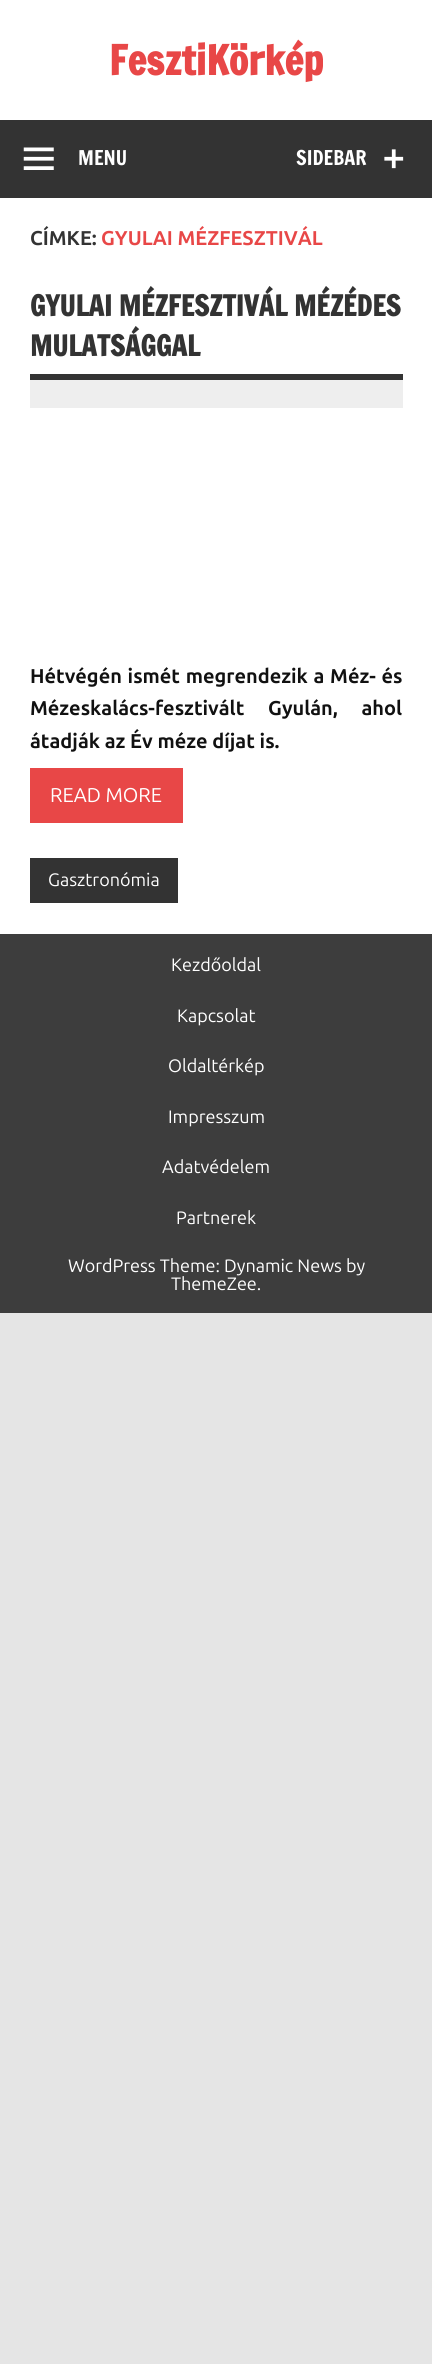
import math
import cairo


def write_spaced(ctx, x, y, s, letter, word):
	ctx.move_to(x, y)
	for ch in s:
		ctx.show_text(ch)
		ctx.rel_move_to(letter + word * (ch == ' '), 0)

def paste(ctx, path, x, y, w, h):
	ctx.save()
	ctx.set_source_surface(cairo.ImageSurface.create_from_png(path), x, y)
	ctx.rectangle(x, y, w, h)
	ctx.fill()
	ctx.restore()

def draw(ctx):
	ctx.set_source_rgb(0.898, 0.898, 0.898)
	ctx.paint()
	ctx.set_source_rgb(1, 1, 1)
	ctx.rectangle(0, 0, 432, 934)
	ctx.fill()
	ctx.select_font_face('Francois One', cairo.FONT_SLANT_NORMAL, cairo.FONT_WEIGHT_BOLD)
	ctx.set_font_size(40)
	ctx.set_source_rgb(0.91, 0.278, 0.278)
	ctx.move_to(109, 75)
	ctx.show_text('FesztiKörkép')
	ctx.set_source_rgb(0.2, 0.2, 0.2)
	ctx.rectangle(0, 120, 432, 78)
	ctx.fill()
	paste(ctx, 'media/1.png', 23, 147, 31, 23)
	ctx.select_font_face('Francois One')
	ctx.set_font_size(20)
	ctx.set_source_rgb(1, 1, 1)
	ctx.move_to(78, 165)
	ctx.show_text('MENU')
	ctx.move_to(296, 165)
	ctx.show_text('SIDEBAR')
	paste(ctx, 'media/2.png', 384, 149, 20, 20)
	ctx.select_font_face('Ubuntu', cairo.FONT_SLANT_NORMAL, cairo.FONT_WEIGHT_BOLD)
	ctx.set_source_rgb(0.2, 0.2, 0.2)
	ctx.move_to(30, 245)
	ctx.show_text('CÍMKE:')
	ctx.set_source_rgb(0.91, 0.278, 0.278)
	ctx.move_to(101, 245)
	ctx.show_text('GYULAI MÉZFESZTIVÁL')
	ctx.set_source_rgb(0.2, 0.2, 0.2)
	ctx.rectangle(30, 374, 373, 6)
	ctx.fill()
	ctx.select_font_face('Francois One', cairo.FONT_SLANT_NORMAL, cairo.FONT_WEIGHT_BOLD)
	ctx.set_font_size(28)
	ctx.move_to(30, 316)
	ctx.show_text('GYULAI MÉZFESZTIVÁL MÉZÉDES')
	ctx.move_to(30, 356)
	ctx.show_text('MULATSÁGGAL')
	ctx.set_source_rgb(0.933, 0.933, 0.933)
	ctx.rectangle(30, 380, 373, 28)
	ctx.fill()
	ctx.select_font_face('Ubuntu', cairo.FONT_SLANT_NORMAL, cairo.FONT_WEIGHT_BOLD)
	ctx.set_font_size(20)
	ctx.set_source_rgb(0.067, 0.067, 0.067)
	write_spaced(ctx, 30, 683, 'Hétvégén ismét megrendezik a Méz- és', 0, 1)
	write_spaced(ctx, 30, 715, 'Mézeskalács-fesztivált Gyulán, ahol', 0, 19)
	ctx.move_to(30, 748)
	ctx.show_text('átadják az Év méze díjat is.')
	ctx.set_source_rgb(0.91, 0.278, 0.278)
	ctx.rectangle(30, 768, 153, 55)
	ctx.fill()
	ctx.select_font_face('Ubuntu')
	ctx.set_source_rgb(1, 1, 1)
	ctx.move_to(50, 802)
	ctx.show_text('READ MORE')
	ctx.set_source_rgb(0.2, 0.2, 0.2)
	ctx.rectangle(30, 858, 148, 45)
	ctx.fill()
	ctx.set_font_size(18)
	ctx.set_source_rgb(1, 1, 1)
	ctx.move_to(48, 886)
	ctx.show_text('Gasztronómia')
	ctx.set_source_rgb(0.239, 0.239, 0.239)
	ctx.rectangle(0, 934, 432, 379)
	ctx.fill()
	ctx.set_source_rgb(1, 1, 1)
	for x, y, s in [
		(171, 971, 'Kezdőoldal'),
		(177, 1022, 'Kapcsolat'),
		(168, 1072, 'Oldaltérkép'),
		(168, 1123, 'Impresszum'),
		(162, 1173, 'Adatvédelem'),
		(176, 1224, 'Partnerek'),
		(68, 1272, 'WordPress Theme: Dynamic News by'),
		(171, 1290, 'ThemeZee.'),
	]:
		ctx.move_to(x, y)
		ctx.show_text(s)


surface = cairo.ImageSurface(cairo.FORMAT_RGB24, 432, 2364)
ctx = cairo.Context(surface)
options = cairo.FontOptions()
options.set_hint_metrics(cairo.HINT_METRICS_OFF)
options.set_hint_style(cairo.HINT_STYLE_NONE)
ctx.set_font_options(options)
ctx.set_miter_limit(4)
draw(ctx)
surface.write_to_png('image.png')
